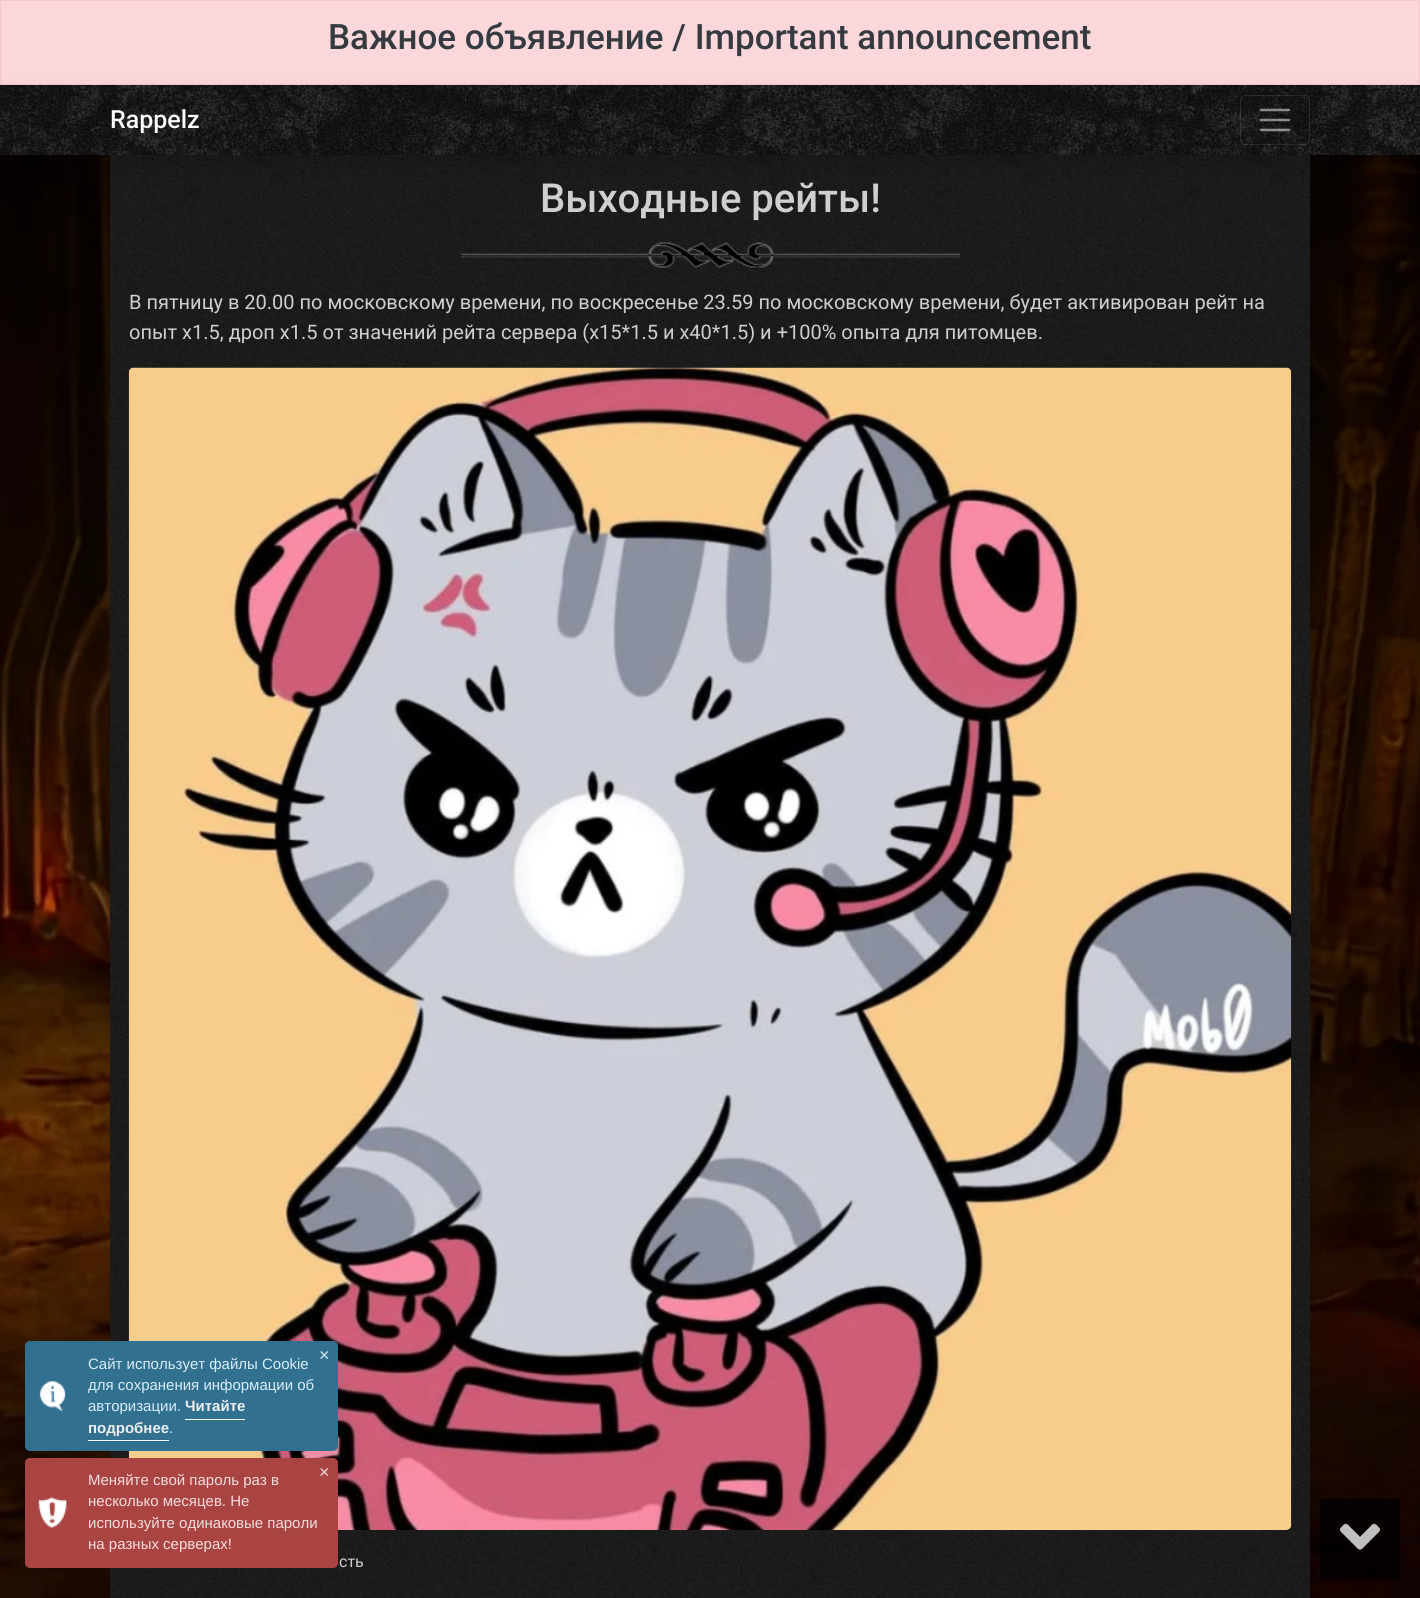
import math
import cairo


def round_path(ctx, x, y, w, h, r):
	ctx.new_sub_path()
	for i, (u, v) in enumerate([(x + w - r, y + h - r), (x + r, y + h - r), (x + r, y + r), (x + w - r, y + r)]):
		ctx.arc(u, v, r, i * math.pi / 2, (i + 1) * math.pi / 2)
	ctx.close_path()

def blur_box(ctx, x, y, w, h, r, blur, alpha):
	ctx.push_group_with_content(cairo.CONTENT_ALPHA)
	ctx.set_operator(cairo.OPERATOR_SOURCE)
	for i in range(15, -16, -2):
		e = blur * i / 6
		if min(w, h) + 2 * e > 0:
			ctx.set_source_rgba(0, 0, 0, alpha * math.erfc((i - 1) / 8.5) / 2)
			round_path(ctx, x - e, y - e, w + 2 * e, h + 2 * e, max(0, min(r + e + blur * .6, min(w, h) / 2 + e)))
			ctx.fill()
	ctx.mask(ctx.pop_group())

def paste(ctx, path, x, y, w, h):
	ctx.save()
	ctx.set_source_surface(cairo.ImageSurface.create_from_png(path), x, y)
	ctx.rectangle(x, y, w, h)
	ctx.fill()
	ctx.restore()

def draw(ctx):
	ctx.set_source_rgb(1, 1, 1)
	ctx.paint()
	ctx.set_source_rgb(0.973, 0.843, 0.855)
	ctx.rectangle(0.5, 0.5, 1419, 84)
	ctx.fill_preserve()
	ctx.set_source_rgb(0.961, 0.776, 0.796)
	ctx.set_line_width(1)
	ctx.stroke()
	ctx.select_font_face('Roboto Medium')
	ctx.set_font_size(35)
	ctx.set_source_rgb(0.204, 0.227, 0.251)
	ctx.move_to(328, 49)
	ctx.show_text('Важное объявление / Important announcement')
	paste(ctx, 'media/2.png', 0, 155, 1420, 1443)
	ctx.set_source_rgb(0, 0, 0)
	blur_box(ctx, 110, 165, 1200, 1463, 0, 10, 0.15)
	paste(ctx, 'media/3.png', 110, 155, 1200, 1443)
	blur_box(ctx, 0, 95, 1420, 70, 0, 10, 0.15)
	paste(ctx, 'media/1.png', 0, 85, 1420, 70)
	ctx.set_font_size(25)
	ctx.set_source_rgb(1, 1, 1)
	ctx.move_to(110, 128)
	ctx.show_text('Rappelz')
	round_path(ctx, 1240.5, 95.5, 69, 49, 4.5)
	ctx.set_source_rgba(1, 1, 1, 0.1)
	ctx.stroke()
	ctx.new_path()
	ctx.move_to(1261, 110)
	ctx.line_to(1289, 110)
	ctx.move_to(1261, 120)
	ctx.line_to(1289, 120)
	ctx.move_to(1261, 130)
	ctx.line_to(1289, 130)
	ctx.set_source_rgba(1, 1, 1, 0.5)
	ctx.set_line_width(2.5)
	ctx.set_line_cap(cairo.LINE_CAP_ROUND)
	ctx.stroke()
	ctx.set_font_size(40)
	ctx.set_source_rgb(0.812, 0.812, 0.812)
	ctx.move_to(540, 212)
	ctx.show_text('Выходные рейты!')
	paste(ctx, 'media/4.png', 461, 242, 499, 26)
	ctx.select_font_face('Roboto')
	ctx.set_font_size(20)
	ctx.move_to(129, 309)
	ctx.show_text('В пятницу в 20.00 по московскому времени, по воскресенье 23.59 по московскому времени, будет активирован рейт на')
	ctx.move_to(129, 339)
	ctx.show_text('опыт х1.5, дроп х1.5 от значений рейта сервера (х15*1.5 и х40*1.5) и +100% опыта для питомцев.')
	paste(ctx, 'media/5.png', 128, 367, 1164, 1163)
	ctx.set_font_size(16)
	ctx.move_to(339, 1567)
	ctx.show_text('сть')
	ctx.set_source_rgb(0.192, 0.439, 0.561)
	round_path(ctx, 25, 1341, 313, 110, 5)
	ctx.fill()
	paste(ctx, 'media/6.png', 39, 1381, 27, 31)
	ctx.select_font_face('Liberation Sans')
	ctx.set_font_size(18)
	ctx.set_source_rgb(0.851, 0.929, 0.969)
	ctx.move_to(319, 1361)
	ctx.show_text('×')
	ctx.set_font_size(15)
	for x, y, s in [
		(88, 1369, 'Сайт использует файлы Cookie'),
		(88, 1390, 'для сохранения информации об'),
		(88, 1411, 'авторизации.'),
	]:
		ctx.move_to(x, y)
		ctx.show_text(s)
	ctx.select_font_face('Liberation Sans', cairo.FONT_SLANT_NORMAL, cairo.FONT_WEIGHT_BOLD)
	ctx.set_source_rgb(0.933, 0.933, 0.933)
	ctx.move_to(185, 1411)
	ctx.show_text('Читайте')
	ctx.set_source_rgb(1, 1, 1)
	ctx.rectangle(185, 1419, 60, 1)
	ctx.fill()
	ctx.set_source_rgb(0.933, 0.933, 0.933)
	ctx.move_to(88, 1433)
	ctx.show_text('подробнее')
	ctx.set_source_rgb(1, 1, 1)
	ctx.rectangle(88, 1440, 81, 1)
	ctx.fill()
	ctx.select_font_face('Liberation Sans')
	ctx.set_source_rgb(0.851, 0.929, 0.969)
	ctx.move_to(169, 1433)
	ctx.show_text('.')
	ctx.set_source_rgb(0.663, 0.267, 0.259)
	round_path(ctx, 25, 1458, 313, 110, 5)
	ctx.fill()
	paste(ctx, 'media/7.png', 38, 1497, 29, 31)
	ctx.set_source_rgb(0.949, 0.871, 0.871)
	ctx.move_to(88, 1485)
	ctx.show_text('Меняйте свой пароль раз в')
	ctx.set_font_size(18)
	ctx.move_to(319, 1478)
	ctx.show_text('×')
	ctx.set_font_size(15)
	for x, y, s in [
		(88, 1506, 'несколько месяцев. Не'),
		(88, 1528, 'используйте одинаковые пароли'),
		(88, 1549, 'на разных серверах!'),
	]:
		ctx.move_to(x, y)
		ctx.show_text(s)
	ctx.set_source_rgba(0, 0, 0, 0.75)
	ctx.rectangle(1320, 1499, 80, 80)
	ctx.fill()
	paste(ctx, 'media/8.png', 1340, 1523, 40, 27)


surface = cairo.ImageSurface(cairo.FORMAT_RGB24, 1420, 1598)
ctx = cairo.Context(surface)
options = cairo.FontOptions()
options.set_hint_metrics(cairo.HINT_METRICS_OFF)
options.set_hint_style(cairo.HINT_STYLE_NONE)
ctx.set_font_options(options)
ctx.set_miter_limit(4)
draw(ctx)
surface.write_to_png('image.png')
